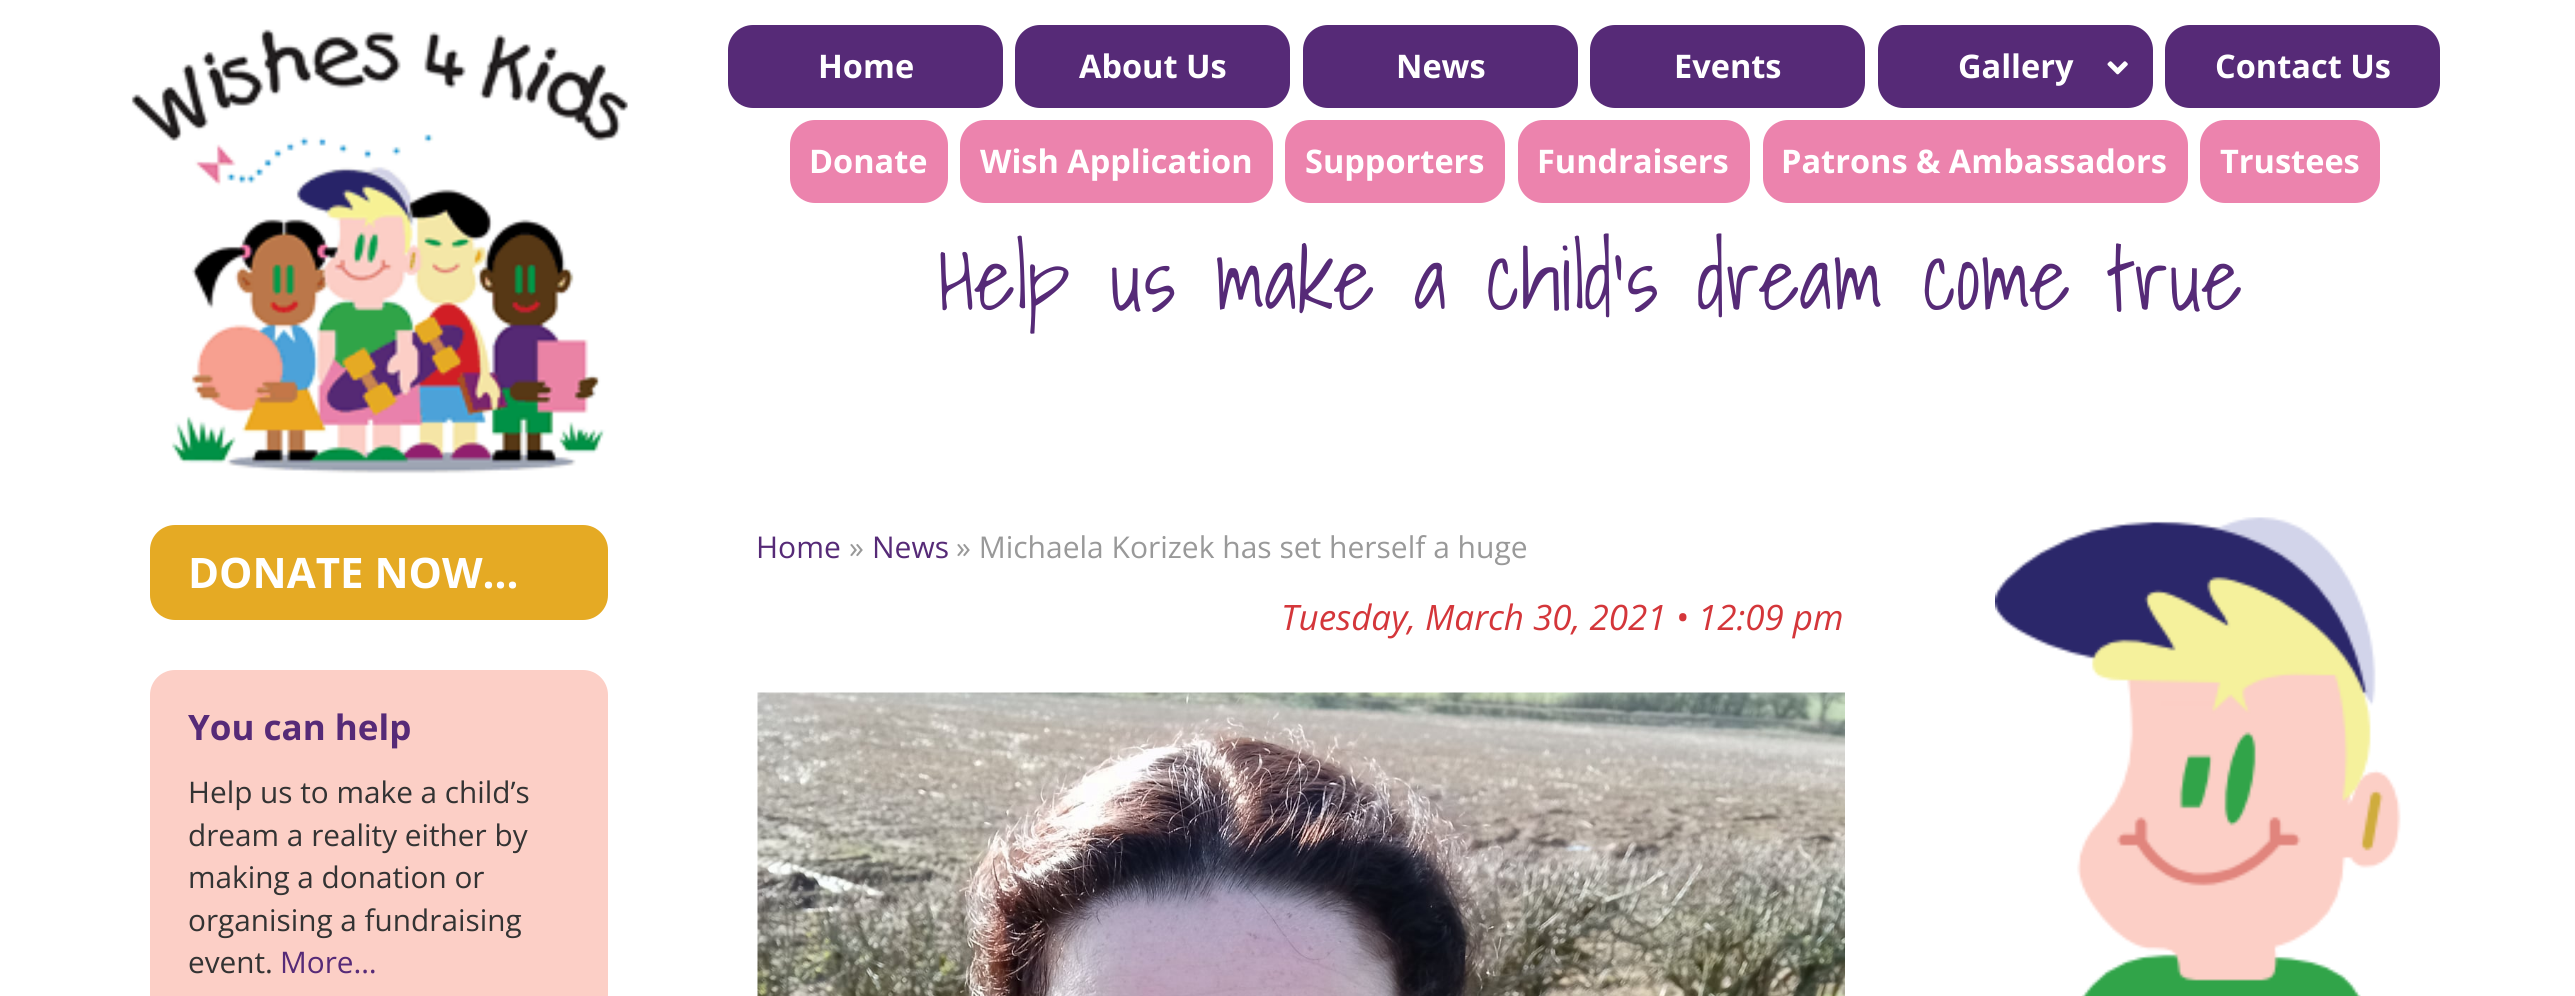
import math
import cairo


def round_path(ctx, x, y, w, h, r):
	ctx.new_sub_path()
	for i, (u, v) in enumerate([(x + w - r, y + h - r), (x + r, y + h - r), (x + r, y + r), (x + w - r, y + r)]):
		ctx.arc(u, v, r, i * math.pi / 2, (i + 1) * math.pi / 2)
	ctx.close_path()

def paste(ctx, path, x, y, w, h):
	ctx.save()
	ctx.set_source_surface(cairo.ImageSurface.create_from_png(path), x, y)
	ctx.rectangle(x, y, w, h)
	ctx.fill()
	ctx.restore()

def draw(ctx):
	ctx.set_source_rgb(1, 1, 1)
	ctx.paint()
	paste(ctx, 'media/1.png', 131, 29, 497, 445)
	ctx.set_source_rgb(0.337, 0.165, 0.467)
	round_path(ctx, 728, 25, 275, 83, 25)
	ctx.fill()
	ctx.select_font_face('Open Sans', cairo.FONT_SLANT_NORMAL, cairo.FONT_WEIGHT_BOLD)
	ctx.set_font_size(32.5)
	ctx.set_source_rgb(1, 1, 1)
	ctx.move_to(818, 78)
	ctx.show_text('Home')
	ctx.set_source_rgb(0.337, 0.165, 0.467)
	round_path(ctx, 1015, 25, 275, 83, 25)
	ctx.fill()
	ctx.set_source_rgb(1, 1, 1)
	ctx.move_to(1079, 78)
	ctx.show_text('About Us')
	ctx.set_source_rgb(0.337, 0.165, 0.467)
	round_path(ctx, 1303, 25, 275, 83, 25)
	ctx.fill()
	ctx.set_source_rgb(1, 1, 1)
	ctx.move_to(1396, 78)
	ctx.show_text('News')
	ctx.set_source_rgb(0.337, 0.165, 0.467)
	round_path(ctx, 1590, 25, 275, 83, 25)
	ctx.fill()
	ctx.set_source_rgb(1, 1, 1)
	ctx.move_to(1674, 78)
	ctx.show_text('Events')
	ctx.set_source_rgb(0.337, 0.165, 0.467)
	round_path(ctx, 1878, 25, 275, 83, 25)
	ctx.fill()
	ctx.set_source_rgb(1, 1, 1)
	ctx.move_to(1958, 78)
	ctx.show_text('Gallery')
	paste(ctx, 'media/2.png', 2107, 61, 21, 14)
	ctx.set_source_rgb(0.337, 0.165, 0.467)
	round_path(ctx, 2165, 25, 275, 83, 25)
	ctx.fill()
	ctx.set_source_rgb(1, 1, 1)
	ctx.move_to(2215, 78)
	ctx.show_text('Contact Us')
	ctx.set_source_rgb(0.922, 0.514, 0.678)
	round_path(ctx, 790, 120, 158, 83, 25)
	ctx.fill()
	ctx.set_source_rgb(1, 1, 1)
	ctx.move_to(809, 173)
	ctx.show_text('Donate')
	ctx.set_source_rgb(0.922, 0.514, 0.678)
	round_path(ctx, 960, 120, 313, 83, 25)
	ctx.fill()
	ctx.set_source_rgb(1, 1, 1)
	ctx.move_to(980, 173)
	ctx.show_text('Wish Application')
	ctx.set_source_rgb(0.922, 0.514, 0.678)
	round_path(ctx, 1285, 120, 220, 83, 25)
	ctx.fill()
	ctx.set_source_rgb(1, 1, 1)
	ctx.move_to(1305, 173)
	ctx.show_text('Supporters')
	ctx.set_source_rgb(0.922, 0.514, 0.678)
	round_path(ctx, 1518, 120, 232, 83, 25)
	ctx.fill()
	ctx.set_source_rgb(1, 1, 1)
	ctx.move_to(1537, 173)
	ctx.show_text('Fundraisers')
	ctx.set_source_rgb(0.922, 0.514, 0.678)
	round_path(ctx, 1763, 120, 425, 83, 25)
	ctx.fill()
	ctx.set_source_rgb(1, 1, 1)
	ctx.move_to(1781, 173)
	ctx.show_text('Patrons & Ambassadors')
	ctx.set_source_rgb(0.922, 0.514, 0.678)
	round_path(ctx, 2200, 120, 180, 83, 25)
	ctx.fill()
	ctx.set_source_rgb(1, 1, 1)
	ctx.move_to(2220, 173)
	ctx.show_text('Trustees')
	ctx.select_font_face('Shadows Into Light Light')
	ctx.set_font_size(87.5)
	ctx.set_source_rgb(0.337, 0.165, 0.467)
	ctx.move_to(938, 310)
	ctx.show_text('Help us make a child\'s dream come true')
	ctx.set_source_rgb(0.898, 0.667, 0.141)
	round_path(ctx, 150, 525, 458, 95, 25)
	ctx.fill()
	ctx.select_font_face('Open Sans', cairo.FONT_SLANT_NORMAL, cairo.FONT_WEIGHT_BOLD)
	ctx.set_font_size(42)
	ctx.set_source_rgb(1, 1, 1)
	ctx.move_to(188, 588)
	ctx.show_text('DONATE NOW...')
	ctx.set_source_rgb(0.988, 0.812, 0.776)
	round_path(ctx, 150, 670, 458, 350, 25)
	ctx.fill()
	ctx.set_font_size(35)
	ctx.set_source_rgb(0.337, 0.165, 0.467)
	ctx.move_to(188, 740)
	ctx.show_text('You can help')
	ctx.select_font_face('Open Sans')
	ctx.set_font_size(29.75)
	ctx.set_source_rgb(0.2, 0.2, 0.2)
	for x, y, s in [
		(188, 803, 'Help us to make a child’s'),
		(188, 846, 'dream a reality either by'),
		(188, 888, 'making a donation or'),
		(188, 931, 'organising a fundraising'),
		(188, 973, 'event.'),
	]:
		ctx.move_to(x, y)
		ctx.show_text(s)
	ctx.set_source_rgb(0.337, 0.165, 0.467)
	ctx.move_to(280, 973)
	ctx.show_text('More…')
	ctx.set_font_size(30)
	ctx.move_to(756, 558)
	ctx.show_text('Home')
	ctx.set_source_rgb(0.6, 0.6, 0.6)
	ctx.move_to(849, 558)
	ctx.show_text('»')
	ctx.set_source_rgb(0.337, 0.165, 0.467)
	ctx.move_to(872, 558)
	ctx.show_text('News')
	ctx.set_source_rgb(0.6, 0.6, 0.6)
	ctx.move_to(956, 558)
	ctx.show_text('» Michaela Korizek has set herself a huge')
	ctx.select_font_face('Open Sans', cairo.FONT_SLANT_ITALIC)
	ctx.set_font_size(35)
	ctx.set_source_rgb(0.831, 0.212, 0.227)
	ctx.move_to(1281, 630)
	ctx.show_text('Tuesday, March 30, 2021 • 12:09 pm')
	paste(ctx, 'media/3.png', 757, 692, 1088, 304)
	paste(ctx, 'media/4.png', 1995, 517, 406, 479)


surface = cairo.ImageSurface(cairo.FORMAT_RGB24, 2575, 996)
ctx = cairo.Context(surface)
options = cairo.FontOptions()
options.set_hint_metrics(cairo.HINT_METRICS_OFF)
options.set_hint_style(cairo.HINT_STYLE_NONE)
ctx.set_font_options(options)
ctx.set_miter_limit(4)
draw(ctx)
surface.write_to_png('image.png')
